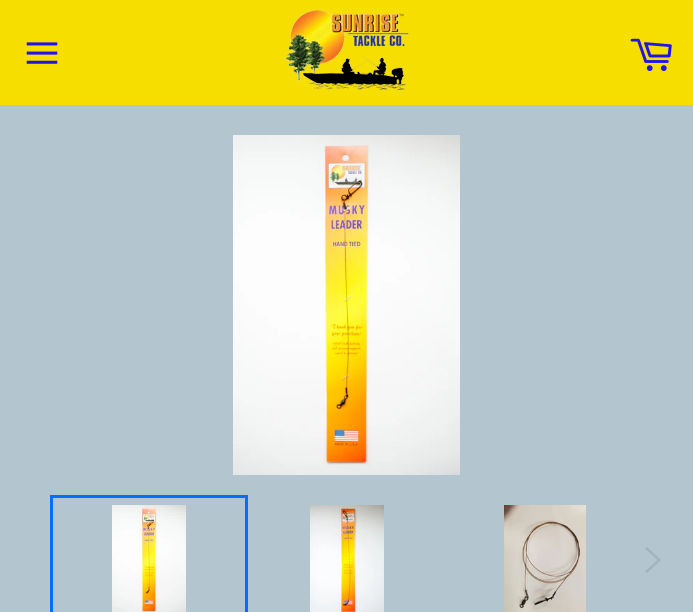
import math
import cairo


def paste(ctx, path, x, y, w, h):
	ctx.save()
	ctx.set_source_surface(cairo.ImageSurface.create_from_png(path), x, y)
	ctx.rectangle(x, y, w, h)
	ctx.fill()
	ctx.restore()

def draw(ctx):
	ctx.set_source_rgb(0.702, 0.773, 0.812)
	ctx.paint()
	ctx.set_source_rgb(0.961, 0.871, 0)
	ctx.rectangle(0, 0, 693, 105)
	ctx.fill()
	paste(ctx, 'media/1.png', 26, 42, 32, 22)
	paste(ctx, 'media/2.png', 284, 10, 126, 80)
	paste(ctx, 'media/3.png', 630, 38, 42, 33)
	paste(ctx, 'media/4.png', 233, 135, 227, 340)
	paste(ctx, 'media/5.png', 112, 505, 74, 107)
	ctx.rectangle(51.5, 496.5, 195, 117)
	ctx.set_source_rgb(0, 0.431, 1)
	ctx.set_line_width(3)
	ctx.stroke()
	paste(ctx, 'media/6.png', 310, 505, 74, 107)
	paste(ctx, 'media/7.png', 504, 505, 82, 107)
	ctx.set_source_rgb(0.643, 0.698, 0.729)
	ctx.new_path()
	ctx.move_to(645, 548.5)
	ctx.line_to(647, 547)
	ctx.line_to(661, 560)
	ctx.line_to(647, 573)
	ctx.line_to(645, 571.5)
	ctx.line_to(657.5, 560)
	ctx.close_path()
	ctx.fill()


surface = cairo.ImageSurface(cairo.FORMAT_RGB24, 693, 612)
ctx = cairo.Context(surface)
options = cairo.FontOptions()
options.set_hint_metrics(cairo.HINT_METRICS_OFF)
options.set_hint_style(cairo.HINT_STYLE_NONE)
ctx.set_font_options(options)
ctx.set_miter_limit(4)
draw(ctx)
surface.write_to_png('image.png')
